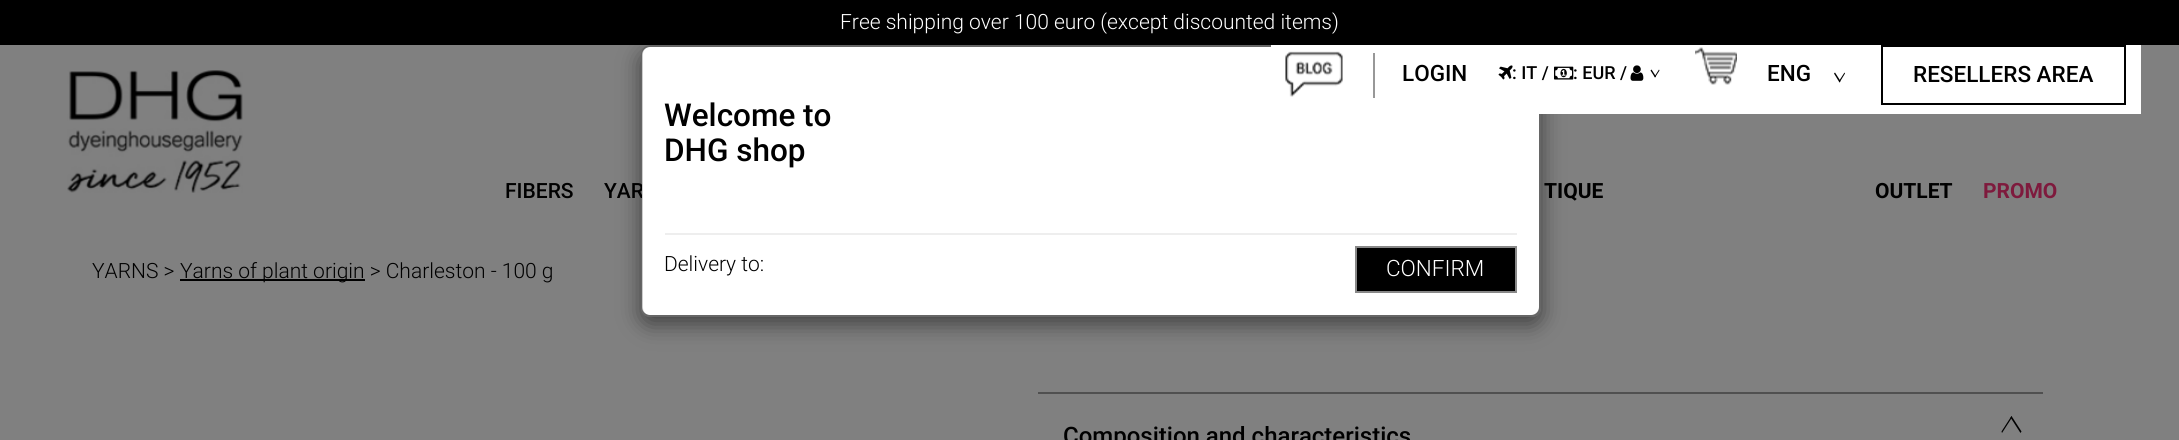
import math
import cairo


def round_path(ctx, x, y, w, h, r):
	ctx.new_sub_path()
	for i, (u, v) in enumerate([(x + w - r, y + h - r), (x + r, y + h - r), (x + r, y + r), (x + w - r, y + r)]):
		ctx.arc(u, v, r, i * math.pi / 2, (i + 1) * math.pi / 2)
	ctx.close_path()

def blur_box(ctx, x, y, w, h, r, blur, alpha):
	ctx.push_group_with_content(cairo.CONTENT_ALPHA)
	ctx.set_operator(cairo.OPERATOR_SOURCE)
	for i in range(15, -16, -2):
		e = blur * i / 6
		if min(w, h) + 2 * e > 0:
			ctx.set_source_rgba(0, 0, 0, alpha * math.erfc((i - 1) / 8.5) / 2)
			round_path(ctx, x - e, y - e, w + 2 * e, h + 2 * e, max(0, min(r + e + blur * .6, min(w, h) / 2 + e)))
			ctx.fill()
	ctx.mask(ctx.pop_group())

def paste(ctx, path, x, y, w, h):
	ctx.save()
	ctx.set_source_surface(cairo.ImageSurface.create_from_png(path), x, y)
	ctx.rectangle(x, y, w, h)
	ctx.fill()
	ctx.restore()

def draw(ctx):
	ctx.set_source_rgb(0.502, 0.502, 0.502)
	ctx.paint()
	ctx.save()
	ctx.set_fill_rule(cairo.FILL_RULE_EVEN_ODD)
	ctx.new_path()
	ctx.move_to(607, 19)
	ctx.line_to(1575, 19)
	ctx.line_to(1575, 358)
	ctx.line_to(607, 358)
	ctx.close_path()
	ctx.move_to(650, 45)
	ctx.line_to(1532, 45)
	ctx.curve_to(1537, 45, 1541, 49, 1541, 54)
	ctx.line_to(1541, 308)
	ctx.curve_to(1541, 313, 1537, 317, 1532, 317)
	ctx.line_to(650, 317)
	ctx.curve_to(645, 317, 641, 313, 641, 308)
	ctx.line_to(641, 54)
	ctx.curve_to(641, 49, 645, 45, 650, 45)
	ctx.close_path()
	ctx.clip()
	ctx.set_source_rgb(0, 0, 0)
	blur_box(ctx, 641, 53, 900, 271, 9, 11, 0.5)
	ctx.restore()
	ctx.set_source_rgb(0, 0, 0)
	ctx.rectangle(0, 0, 2179, 45)
	ctx.fill()
	ctx.select_font_face('Roboto Light')
	ctx.set_font_size(21)
	ctx.set_source_rgb(1, 1, 1)
	ctx.move_to(840, 29)
	ctx.show_text('Free shipping over 100 euro (except discounted items)')
	ctx.select_font_face('Roboto Medium')
	ctx.set_source_rgb(0, 0, 0)
	ctx.move_to(604, 198)
	ctx.show_text('YAR')
	ctx.set_source_rgb(1, 1, 1)
	round_path(ctx, 642, 47, 897, 268, 8)
	ctx.fill()
	round_path(ctx, 642, 46, 898, 270, 8)
	ctx.set_source_rgba(0, 0, 0, 0.2)
	ctx.stroke()
	ctx.set_source_rgb(1, 1, 1)
	ctx.rectangle(1271, 45, 870, 69)
	ctx.fill()
	paste(ctx, 'media/1.png', 1285, 51, 58, 46)
	ctx.set_source_rgb(0.596, 0.596, 0.596)
	ctx.rectangle(1373, 53, 2, 45)
	ctx.fill()
	ctx.set_font_size(22.5)
	ctx.set_source_rgb(0, 0, 0)
	ctx.move_to(1402, 81)
	ctx.show_text('LOGIN')
	paste(ctx, 'media/2.png', 1498, 65, 15, 15)
	ctx.set_font_size(18)
	ctx.move_to(1512, 79)
	ctx.show_text(': IT /')
	paste(ctx, 'media/3.png', 1554, 66, 20, 14)
	ctx.move_to(1573, 79)
	ctx.show_text(': EUR /')
	paste(ctx, 'media/4.png', 1630, 65, 14, 16)
	ctx.new_path()
	ctx.move_to(1659.5, 70.5)
	ctx.line_to(1655, 77.5)
	ctx.line_to(1654.5, 76.5)
	ctx.line_to(1659, 69.5)
	ctx.close_path()
	ctx.fill()
	ctx.new_path()
	ctx.move_to(1656, 76.5)
	ctx.line_to(1655, 77.5)
	ctx.line_to(1650.5, 70.5)
	ctx.line_to(1651.5, 69.5)
	ctx.close_path()
	ctx.fill()
	paste(ctx, 'media/5.png', 1695, 47, 42, 38)
	ctx.set_font_size(22.5)
	ctx.move_to(1767, 81)
	ctx.show_text('ENG')
	ctx.new_path()
	ctx.move_to(1845, 73.5)
	ctx.line_to(1839.5, 82.5)
	ctx.line_to(1839, 81)
	ctx.line_to(1844.5, 72.5)
	ctx.close_path()
	ctx.fill()
	ctx.new_path()
	ctx.move_to(1840.5, 81)
	ctx.line_to(1839.5, 82.5)
	ctx.line_to(1834, 73.5)
	ctx.line_to(1835, 72.5)
	ctx.close_path()
	ctx.fill()
	ctx.rectangle(1882, 46, 243, 58)
	ctx.stroke()
	ctx.move_to(1913, 82)
	ctx.show_text('RESELLERS AREA')
	paste(ctx, 'media/6.png', 67, 70, 176, 123)
	ctx.set_font_size(21)
	ctx.move_to(505, 198)
	ctx.show_text('FIBERS')
	ctx.select_font_face('Roboto', cairo.FONT_SLANT_NORMAL, cairo.FONT_WEIGHT_BOLD)
	ctx.move_to(1544, 198)
	ctx.show_text('TIQUE')
	ctx.move_to(1875, 198)
	ctx.show_text('OUTLET')
	ctx.set_source_rgb(0.494, 0.102, 0.239)
	ctx.move_to(1983, 198)
	ctx.show_text('PROMO')
	ctx.select_font_face('Roboto Medium')
	ctx.set_font_size(31.5)
	ctx.set_source_rgb(0, 0, 0)
	ctx.move_to(664, 126)
	ctx.show_text('Welcome to')
	ctx.move_to(664, 161)
	ctx.show_text('DHG shop')
	ctx.set_source_rgb(0.933, 0.933, 0.933)
	ctx.rectangle(665, 233, 852, 2)
	ctx.fill()
	ctx.select_font_face('Roboto Light')
	ctx.set_font_size(21)
	ctx.set_source_rgb(0, 0, 0)
	ctx.move_to(664, 271)
	ctx.show_text('Delivery to:')
	ctx.rectangle(1356, 247, 160, 45)
	ctx.fill_preserve()
	ctx.set_source_rgb(0.533, 0.533, 0.533)
	ctx.stroke()
	ctx.set_font_size(22.5)
	ctx.set_source_rgb(1, 1, 1)
	ctx.move_to(1386, 276)
	ctx.show_text('CONFIRM')
	ctx.set_font_size(21)
	ctx.set_source_rgb(0, 0, 0)
	ctx.move_to(92, 278)
	ctx.show_text('YARNS >')
	ctx.rectangle(180, 279, 185, 2)
	ctx.fill()
	ctx.move_to(180, 278)
	ctx.show_text('Yarns of plant origin > Charleston - 100 g')
	ctx.set_source_rgb(0.314, 0.314, 0.314)
	ctx.rectangle(1038, 392, 1005, 2)
	ctx.fill()
	ctx.select_font_face('Roboto Medium')
	ctx.set_font_size(24)
	ctx.set_source_rgb(0, 0, 0)
	ctx.move_to(1063, 444)
	ctx.show_text('Composition and characteristics')
	ctx.new_path()
	ctx.move_to(2001.5, 431.5)
	ctx.line_to(2011.5, 416)
	ctx.line_to(2012, 417.5)
	ctx.line_to(2002, 433)
	ctx.close_path()
	ctx.fill()
	ctx.new_path()
	ctx.move_to(2010.5, 417.5)
	ctx.line_to(2011.5, 416)
	ctx.line_to(2021.5, 431.5)
	ctx.line_to(2020.5, 433)
	ctx.close_path()
	ctx.fill()


surface = cairo.ImageSurface(cairo.FORMAT_RGB24, 2179, 440)
ctx = cairo.Context(surface)
options = cairo.FontOptions()
options.set_hint_metrics(cairo.HINT_METRICS_OFF)
options.set_hint_style(cairo.HINT_STYLE_NONE)
ctx.set_font_options(options)
ctx.set_miter_limit(4)
draw(ctx)
surface.write_to_png('image.png')
